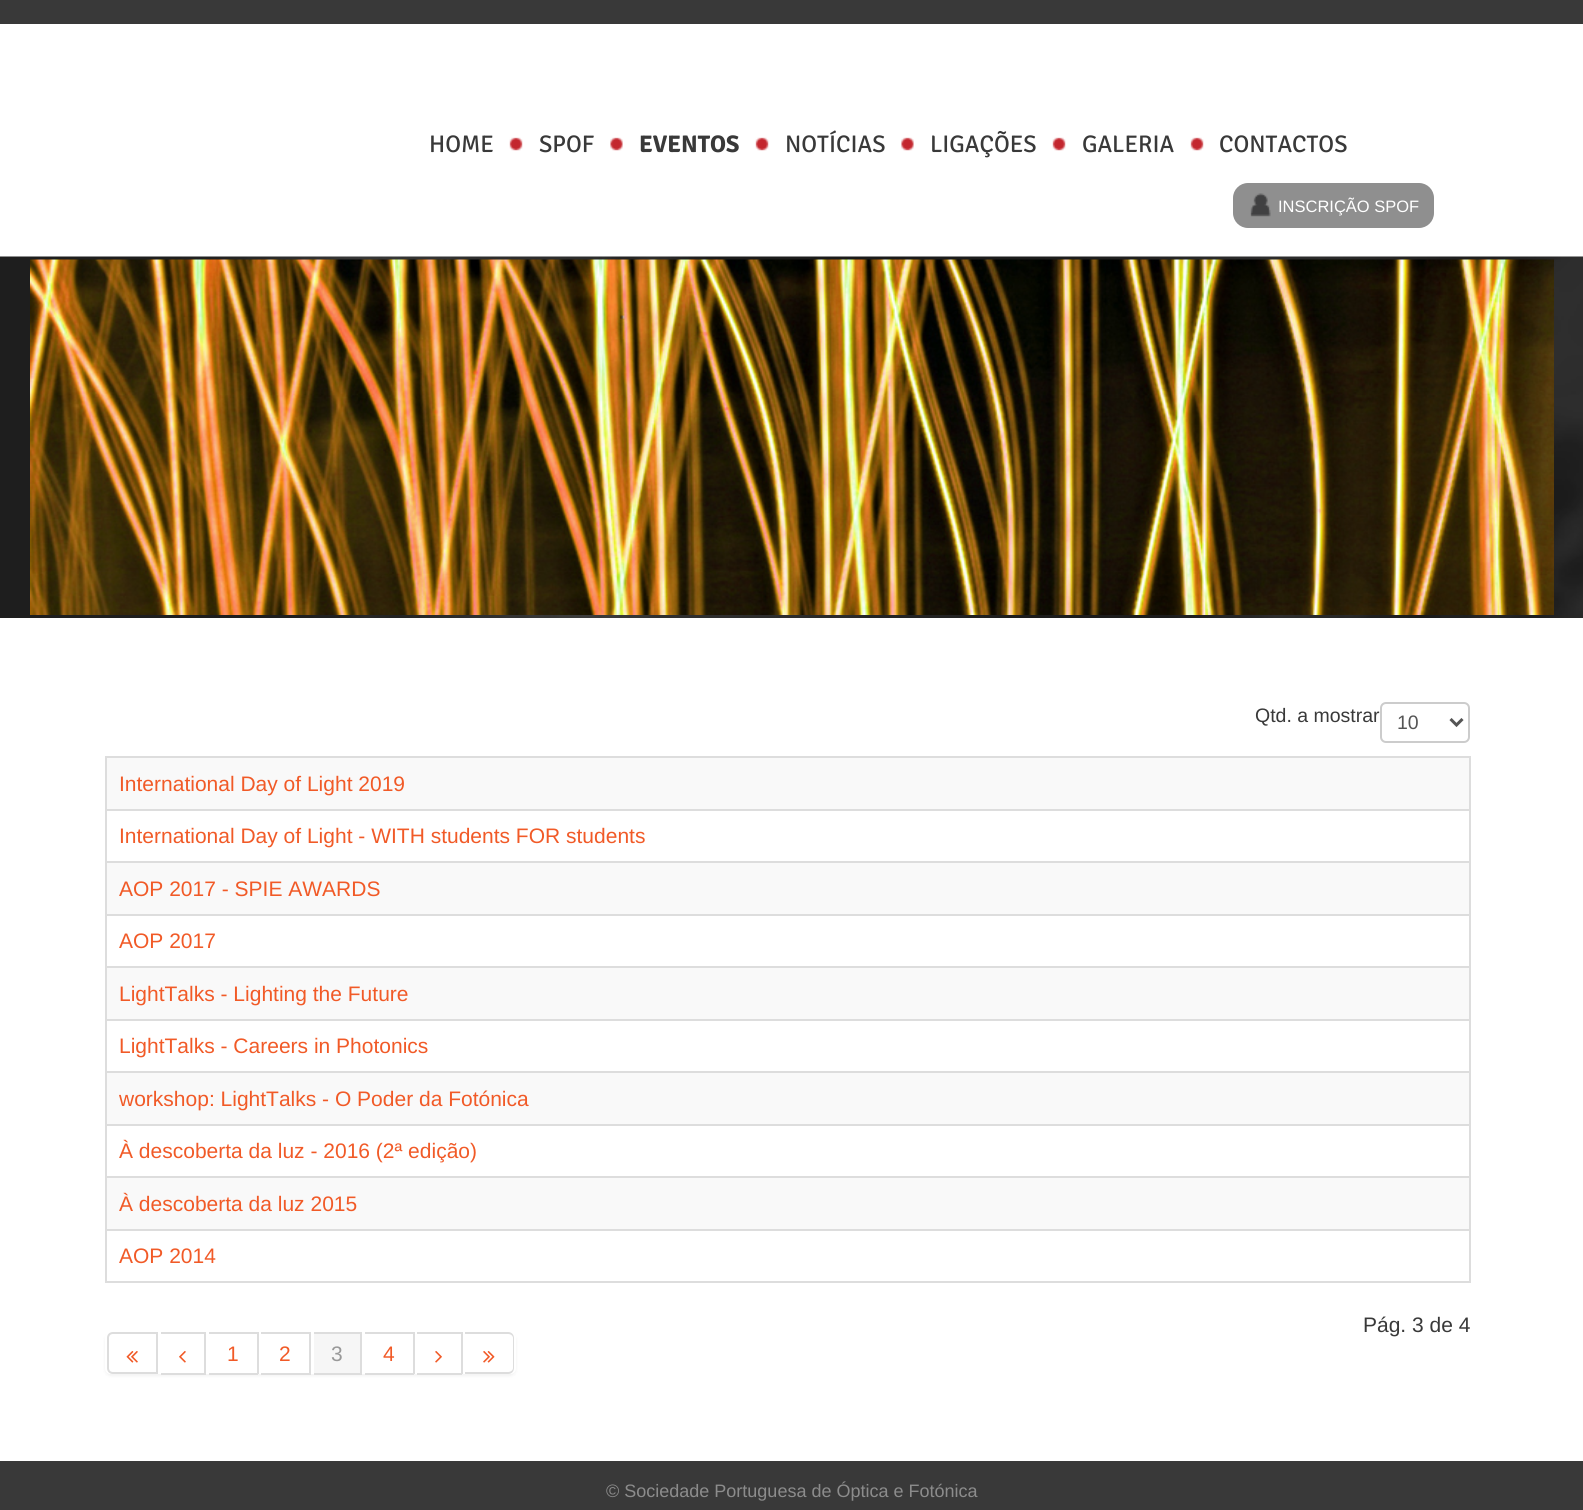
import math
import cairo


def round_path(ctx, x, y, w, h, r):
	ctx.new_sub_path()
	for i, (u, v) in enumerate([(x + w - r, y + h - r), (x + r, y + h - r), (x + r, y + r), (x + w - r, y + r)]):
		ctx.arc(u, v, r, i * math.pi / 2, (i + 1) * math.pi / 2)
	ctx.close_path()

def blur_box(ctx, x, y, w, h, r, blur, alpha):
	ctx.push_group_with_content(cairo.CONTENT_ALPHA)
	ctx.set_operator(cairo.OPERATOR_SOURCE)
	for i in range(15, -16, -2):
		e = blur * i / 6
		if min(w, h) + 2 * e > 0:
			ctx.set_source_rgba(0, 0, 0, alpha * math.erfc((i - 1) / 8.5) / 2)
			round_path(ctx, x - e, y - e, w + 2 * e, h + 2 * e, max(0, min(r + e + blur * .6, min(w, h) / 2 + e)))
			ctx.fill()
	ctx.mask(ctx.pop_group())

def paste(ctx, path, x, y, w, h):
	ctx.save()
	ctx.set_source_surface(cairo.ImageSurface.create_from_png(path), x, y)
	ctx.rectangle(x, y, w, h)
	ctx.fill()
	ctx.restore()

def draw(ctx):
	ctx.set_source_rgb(1, 1, 1)
	ctx.paint()
	ctx.set_source_rgb(0.224, 0.224, 0.224)
	ctx.rectangle(0, 0, 1583, 24)
	ctx.fill()
	ctx.select_font_face('Signika')
	ctx.set_font_size(24)
	ctx.move_to(429, 152)
	ctx.show_text('HOME')
	paste(ctx, 'media/1.png', 509, 137, 14, 14)
	ctx.move_to(539, 152)
	ctx.show_text('SPOF')
	paste(ctx, 'media/2.png', 610, 137, 13, 14)
	ctx.select_font_face('Signika', cairo.FONT_SLANT_NORMAL, cairo.FONT_WEIGHT_BOLD)
	ctx.move_to(639, 152)
	ctx.show_text('EVENTOS')
	paste(ctx, 'media/3.png', 755, 137, 14, 14)
	ctx.select_font_face('Signika')
	ctx.move_to(785, 152)
	ctx.show_text('NOTÍCIAS')
	paste(ctx, 'media/2.png', 901, 137, 13, 14)
	ctx.move_to(930, 152)
	ctx.show_text('LIGAÇÕES')
	paste(ctx, 'media/4.png', 1052, 137, 14, 14)
	ctx.move_to(1082, 152)
	ctx.show_text('GALERIA')
	paste(ctx, 'media/4.png', 1190, 137, 14, 14)
	ctx.move_to(1219, 152)
	ctx.show_text('CONTACTOS')
	ctx.set_source_rgb(0.561, 0.561, 0.561)
	round_path(ctx, 1233, 183, 201, 45, 15)
	ctx.fill()
	paste(ctx, 'media/5.png', 1250, 193, 21, 24)
	ctx.select_font_face('Liberation Sans')
	ctx.set_font_size(16.5)
	ctx.set_source_rgb(1, 1, 1)
	ctx.move_to(1278, 212)
	ctx.show_text('INSCRIÇÃO SPOF')
	paste(ctx, 'media/6.png', 0, 256, 1583, 362)
	paste(ctx, 'media/7.png', 30, 259, 1524, 356)
	ctx.set_font_size(19.5)
	ctx.set_source_rgb(0.224, 0.224, 0.224)
	ctx.move_to(1255, 722)
	ctx.show_text('Qtd. a mostrar')
	round_path(ctx, 1381, 703, 88, 39, 5)
	ctx.set_source_rgb(0.8, 0.8, 0.8)
	ctx.stroke()
	ctx.new_path()
	ctx.move_to(1450.5, 719)
	ctx.line_to(1456.5, 725)
	ctx.line_to(1462.5, 719)
	ctx.set_source_rgb(0.333, 0.333, 0.333)
	ctx.set_line_width(3)
	ctx.stroke()
	ctx.move_to(1397, 729)
	ctx.show_text('10')
	ctx.set_source_rgb(0.867, 0.867, 0.867)
	ctx.rectangle(105, 756, 1365, 2)
	ctx.rectangle(1469, 756, 2, 527)
	ctx.rectangle(105, 1281, 1365, 2)
	ctx.fill()
	ctx.set_source_rgb(0.976, 0.976, 0.976)
	ctx.rectangle(107, 758, 1362, 51)
	ctx.fill()
	ctx.set_font_size(21)
	ctx.set_source_rgb(0.945, 0.353, 0.153)
	ctx.move_to(119, 791)
	ctx.show_text('International Day of Light 2019')
	ctx.set_source_rgb(0.867, 0.867, 0.867)
	ctx.rectangle(105, 809, 1365, 2)
	ctx.rectangle(105, 861, 1365, 2)
	ctx.rectangle(105, 914, 1365, 2)
	ctx.rectangle(105, 966, 1365, 2)
	ctx.rectangle(105, 1019, 1365, 2)
	ctx.rectangle(105, 1071, 1365, 2)
	ctx.rectangle(105, 1124, 1365, 2)
	ctx.rectangle(105, 1176, 1365, 2)
	ctx.rectangle(105, 1229, 1365, 2)
	ctx.rectangle(105, 1229, 2, 54)
	ctx.rectangle(105, 1176, 2, 54)
	ctx.rectangle(105, 1124, 2, 54)
	ctx.rectangle(105, 1071, 2, 54)
	ctx.rectangle(105, 1019, 2, 54)
	ctx.rectangle(105, 966, 2, 54)
	ctx.rectangle(105, 914, 2, 54)
	ctx.rectangle(105, 861, 2, 54)
	ctx.rectangle(105, 756, 2, 107)
	ctx.fill()
	ctx.set_source_rgb(0.945, 0.353, 0.153)
	ctx.move_to(119, 843)
	ctx.show_text('International Day of Light - WITH students FOR students')
	ctx.set_source_rgb(0.976, 0.976, 0.976)
	ctx.rectangle(107, 863, 1362, 51)
	ctx.fill()
	ctx.set_source_rgb(0.945, 0.353, 0.153)
	ctx.move_to(119, 896)
	ctx.show_text('AOP 2017 - SPIE AWARDS')
	ctx.move_to(119, 948)
	ctx.show_text('AOP 2017')
	ctx.set_source_rgb(0.976, 0.976, 0.976)
	ctx.rectangle(107, 968, 1362, 51)
	ctx.fill()
	ctx.set_source_rgb(0.945, 0.353, 0.153)
	ctx.move_to(119, 1001)
	ctx.show_text('LightTalks - Lighting the Future')
	ctx.move_to(119, 1053)
	ctx.show_text('LightTalks - Careers in Photonics')
	ctx.set_source_rgb(0.976, 0.976, 0.976)
	ctx.rectangle(107, 1073, 1362, 51)
	ctx.fill()
	ctx.set_source_rgb(0.945, 0.353, 0.153)
	ctx.move_to(119, 1106)
	ctx.show_text('workshop: LightTalks - O Poder da Fotónica')
	ctx.move_to(119, 1158)
	ctx.show_text('À descoberta da luz - 2016 (2ª edição)')
	ctx.set_source_rgb(0.976, 0.976, 0.976)
	ctx.rectangle(107, 1178, 1362, 51)
	ctx.fill()
	ctx.set_source_rgb(0.945, 0.353, 0.153)
	ctx.move_to(119, 1211)
	ctx.show_text('À descoberta da luz 2015')
	ctx.move_to(119, 1263)
	ctx.show_text('AOP 2014')
	ctx.set_source_rgb(0.224, 0.224, 0.224)
	ctx.move_to(1363, 1332)
	ctx.show_text('Pág. 3 de 4')
	ctx.save()
	ctx.set_fill_rule(cairo.FILL_RULE_EVEN_ODD)
	ctx.new_path()
	ctx.move_to(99, 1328)
	ctx.line_to(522, 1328)
	ctx.line_to(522, 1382)
	ctx.line_to(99, 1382)
	ctx.close_path()
	ctx.move_to(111, 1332)
	ctx.line_to(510, 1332)
	ctx.curve_to(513.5, 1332, 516, 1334.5, 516, 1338)
	ctx.line_to(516, 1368)
	ctx.curve_to(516, 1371.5, 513.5, 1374, 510, 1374)
	ctx.line_to(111, 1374)
	ctx.curve_to(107.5, 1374, 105, 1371.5, 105, 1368)
	ctx.line_to(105, 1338)
	ctx.curve_to(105, 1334.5, 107.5, 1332, 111, 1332)
	ctx.close_path()
	ctx.clip()
	ctx.set_source_rgb(0, 0, 0)
	blur_box(ctx, 105, 1334, 411, 42, 6, 1.5, 0.05)
	ctx.restore()
	ctx.new_path()
	ctx.move_to(113, 1333)
	ctx.line_to(157, 1333)
	ctx.line_to(157, 1373)
	ctx.line_to(113, 1373)
	ctx.curve_to(110, 1373, 108, 1371, 108, 1368)
	ctx.line_to(108, 1338)
	ctx.curve_to(108, 1335, 110, 1333, 113, 1333)
	ctx.close_path()
	ctx.set_source_rgb(0.867, 0.867, 0.867)
	ctx.set_line_width(2)
	ctx.stroke()
	paste(ctx, 'media/8.png', 126, 1351, 12, 12)
	ctx.rectangle(161, 1332, 45, 2)
	ctx.rectangle(204, 1332, 2, 42)
	ctx.rectangle(161, 1373, 45, 2)
	ctx.fill()
	paste(ctx, 'media/9.png', 179, 1351, 7, 12)
	ctx.rectangle(209, 1332, 49, 2)
	ctx.rectangle(257, 1332, 2, 42)
	ctx.rectangle(209, 1373, 49, 2)
	ctx.fill()
	ctx.set_source_rgb(0.945, 0.353, 0.153)
	ctx.move_to(227, 1361)
	ctx.show_text('1')
	ctx.set_source_rgb(0.867, 0.867, 0.867)
	ctx.rectangle(261, 1332, 50, 2)
	ctx.rectangle(309, 1332, 2, 42)
	ctx.rectangle(261, 1373, 50, 2)
	ctx.fill()
	ctx.set_source_rgb(0.945, 0.353, 0.153)
	ctx.move_to(279, 1361)
	ctx.show_text('2')
	ctx.set_source_rgb(0.961, 0.961, 0.961)
	ctx.rectangle(314, 1334, 46, 39)
	ctx.fill()
	ctx.set_source_rgb(0.867, 0.867, 0.867)
	ctx.rectangle(314, 1332, 48, 2)
	ctx.rectangle(360, 1332, 2, 42)
	ctx.rectangle(314, 1373, 48, 2)
	ctx.fill()
	ctx.set_source_rgb(0.6, 0.6, 0.6)
	ctx.move_to(331, 1361)
	ctx.show_text('3')
	ctx.set_source_rgb(0.867, 0.867, 0.867)
	ctx.rectangle(365, 1332, 49, 2)
	ctx.rectangle(413, 1332, 2, 42)
	ctx.rectangle(365, 1373, 49, 2)
	ctx.fill()
	ctx.set_source_rgb(0.945, 0.353, 0.153)
	ctx.move_to(383, 1361)
	ctx.show_text('4')
	ctx.set_source_rgb(0.867, 0.867, 0.867)
	ctx.rectangle(417, 1332, 45, 2)
	ctx.rectangle(461, 1332, 2, 42)
	ctx.rectangle(417, 1373, 45, 2)
	ctx.fill()
	paste(ctx, 'media/10.png', 435, 1351, 7, 12)
	ctx.set_fill_rule(cairo.FILL_RULE_EVEN_ODD)
	ctx.new_path()
	ctx.move_to(465, 1332)
	ctx.line_to(508, 1332)
	ctx.curve_to(512, 1332, 514, 1335, 514, 1338)
	ctx.line_to(514, 1368)
	ctx.curve_to(514, 1371, 512, 1374, 508, 1374)
	ctx.line_to(465, 1374)
	ctx.close_path()
	ctx.move_to(465, 1334)
	ctx.line_to(508, 1334)
	ctx.curve_to(511, 1334, 513, 1336, 513, 1338)
	ctx.line_to(513, 1368)
	ctx.curve_to(513, 1370, 511, 1372, 508, 1372)
	ctx.line_to(465, 1372)
	ctx.close_path()
	ctx.fill()
	paste(ctx, 'media/11.png', 483, 1351, 12, 12)
	ctx.set_source_rgb(0.224, 0.224, 0.224)
	ctx.rectangle(0, 1461, 1583, 49)
	ctx.fill()
	ctx.set_font_size(18)
	ctx.set_source_rgb(0.549, 0.549, 0.549)
	ctx.move_to(606, 1497)
	ctx.show_text('© Sociedade Portuguesa de Óptica e Fotónica')


surface = cairo.ImageSurface(cairo.FORMAT_RGB24, 1583, 1510)
ctx = cairo.Context(surface)
options = cairo.FontOptions()
options.set_hint_metrics(cairo.HINT_METRICS_OFF)
options.set_hint_style(cairo.HINT_STYLE_NONE)
ctx.set_font_options(options)
ctx.set_miter_limit(4)
draw(ctx)
surface.write_to_png('image.png')
